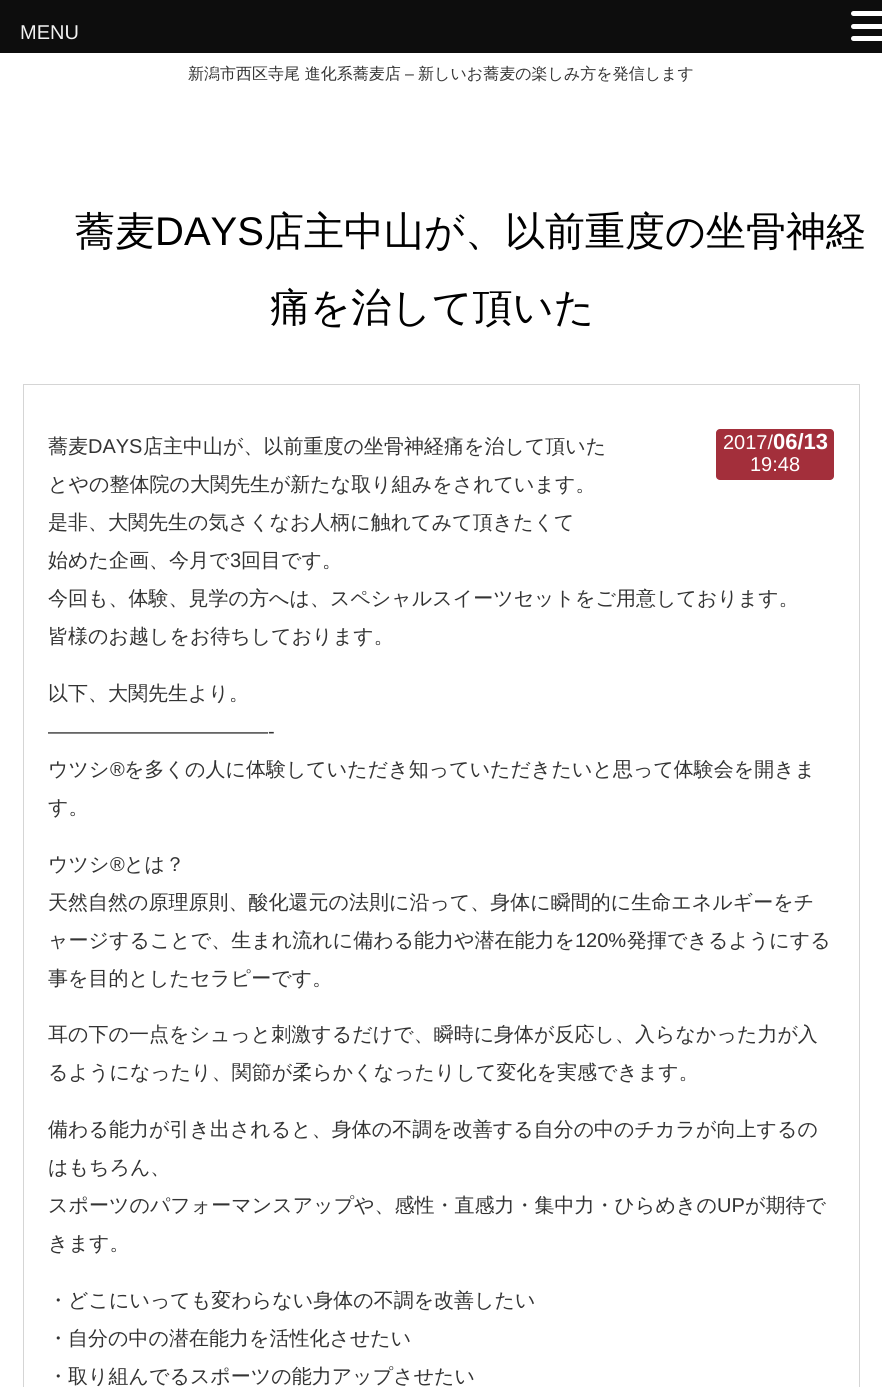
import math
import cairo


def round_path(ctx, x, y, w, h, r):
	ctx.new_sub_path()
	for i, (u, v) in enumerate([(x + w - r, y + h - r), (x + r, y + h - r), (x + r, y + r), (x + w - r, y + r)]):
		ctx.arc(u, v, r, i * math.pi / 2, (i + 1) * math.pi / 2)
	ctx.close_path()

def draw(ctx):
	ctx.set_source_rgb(1, 1, 1)
	ctx.paint()
	ctx.set_source_rgb(0.051, 0.051, 0.051)
	ctx.rectangle(0, 0, 882, 53)
	ctx.fill()
	ctx.select_font_face('Liberation Sans')
	ctx.set_font_size(20)
	ctx.set_source_rgb(0.949, 0.949, 0.949)
	ctx.move_to(20, 39)
	ctx.show_text('MENU')
	ctx.set_source_rgb(1, 1, 1)
	round_path(ctx, 851, 11, 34, 5, 2.5)
	ctx.fill()
	round_path(ctx, 851, 24, 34, 5, 2.5)
	ctx.fill()
	round_path(ctx, 851, 36, 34, 5, 2.5)
	ctx.fill()
	ctx.select_font_face('WenQuanYi Zen Hei Medium')
	ctx.set_font_size(16)
	ctx.set_source_rgb(0.2, 0.2, 0.2)
	ctx.move_to(188, 79)
	ctx.show_text('新潟市西区寺尾 進化系蕎麦店')
	ctx.select_font_face('Liberation Sans')
	ctx.move_to(405, 79)
	ctx.show_text('–')
	ctx.select_font_face('WenQuanYi Zen Hei Medium')
	ctx.move_to(418, 79)
	ctx.show_text('新しいお蕎麦の楽しみ方を発信します')
	ctx.set_font_size(40)
	ctx.set_source_rgb(0, 0, 0)
	ctx.move_to(75, 245)
	ctx.show_text('蕎麦')
	ctx.select_font_face('Liberation Sans')
	ctx.move_to(155, 245)
	ctx.show_text('DAYS')
	ctx.select_font_face('WenQuanYi Zen Hei Medium')
	ctx.move_to(264, 245)
	ctx.show_text('店主中山が、以前重度の坐骨神経')
	ctx.move_to(270, 321)
	ctx.show_text('痛を治して頂いた')
	ctx.rectangle(23.5, 384.5, 836, 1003)
	ctx.set_source_rgb(0.835, 0.835, 0.835)
	ctx.set_line_width(1)
	ctx.stroke()
	ctx.set_source_rgb(0.639, 0.184, 0.231)
	round_path(ctx, 716, 429, 118, 51, 4)
	ctx.fill()
	ctx.select_font_face('Liberation Sans')
	ctx.set_font_size(20)
	ctx.set_source_rgb(1, 1, 1)
	ctx.move_to(723, 449)
	ctx.show_text('2017/')
	ctx.select_font_face('Liberation Sans', cairo.FONT_SLANT_NORMAL, cairo.FONT_WEIGHT_BOLD)
	ctx.set_font_size(22)
	ctx.move_to(773, 449)
	ctx.show_text('06/13')
	ctx.select_font_face('Liberation Sans')
	ctx.set_font_size(20)
	ctx.move_to(750, 471)
	ctx.show_text('19:48')
	ctx.select_font_face('WenQuanYi Zen Hei Medium')
	ctx.set_source_rgb(0.2, 0.2, 0.2)
	ctx.move_to(48, 453)
	ctx.show_text('蕎麦')
	ctx.select_font_face('Liberation Sans')
	ctx.move_to(88, 453)
	ctx.show_text('DAYS')
	ctx.select_font_face('WenQuanYi Zen Hei Medium')
	for x, y, s in [
		(143, 453, '店主中山が、以前重度の坐骨神経痛を治して頂いた'),
		(48, 491, 'とやの整体院の大関先生が新たな取り組みをされています。'),
		(48, 529, '是非、大関先生の気さくなお人柄に触れてみて頂きたくて'),
		(48, 567, '始めた企画、今月で'),
	]:
		ctx.move_to(x, y)
		ctx.show_text(s)
	ctx.select_font_face('Liberation Sans')
	ctx.move_to(230, 567)
	ctx.show_text('3')
	ctx.select_font_face('WenQuanYi Zen Hei Medium')
	for x, y, s in [
		(241, 567, '回目です。'),
		(48, 605, '今回も、体験、見学の方へは、スペシャルスイーツセットをご用意しております。'),
		(48, 643, '皆様のお越しをお待ちしております。'),
		(48, 700, '以下、大関先生より。'),
	]:
		ctx.move_to(x, y)
		ctx.show_text(s)
	ctx.select_font_face('Liberation Sans')
	ctx.move_to(48, 738)
	ctx.show_text('———————————-')
	ctx.select_font_face('WenQuanYi Zen Hei Medium')
	ctx.move_to(48, 776)
	ctx.show_text('ウツシ')
	ctx.select_font_face('Liberation Sans')
	ctx.move_to(110, 776)
	ctx.show_text('®')
	ctx.select_font_face('WenQuanYi Zen Hei Medium')
	for x, y, s in [
		(124, 776, 'を多くの人に体験していただき知っていただきたいと思って体験会を開きま'),
		(48, 814, 'す。'),
		(48, 871, 'ウツシ'),
	]:
		ctx.move_to(x, y)
		ctx.show_text(s)
	ctx.select_font_face('Liberation Sans')
	ctx.move_to(110, 871)
	ctx.show_text('®')
	ctx.select_font_face('WenQuanYi Zen Hei Medium')
	for x, y, s in [
		(124, 871, 'とは？'),
		(48, 909, '天然自然の原理原則、酸化還元の法則に沿って、身体に瞬間的に生命エネルギーをチ'),
		(48, 947, 'ャージすることで、生まれ流れに備わる能力や潜在能力を'),
	]:
		ctx.move_to(x, y)
		ctx.show_text(s)
	ctx.select_font_face('Liberation Sans')
	ctx.move_to(575, 947)
	ctx.show_text('120%')
	ctx.select_font_face('WenQuanYi Zen Hei Medium')
	for x, y, s in [
		(627, 947, '発揮できるようにする'),
		(48, 985, '事を目的としたセラピーです。'),
		(48, 1041, '耳の下の一点をシュっと刺激するだけで、瞬時に身体が反応し、入らなかった力が入'),
		(48, 1079, 'るようになったり、関節が柔らかくなったりして変化を実感できます。'),
		(48, 1136, '備わる能力が引き出されると、身体の不調を改善する自分の中のチカラが向上するの'),
		(48, 1174, 'はもちろん、'),
		(48, 1212, 'スポーツのパフォーマンスアップや、感性・直感力・集中力・ひらめきの'),
	]:
		ctx.move_to(x, y)
		ctx.show_text(s)
	ctx.select_font_face('Liberation Sans')
	ctx.move_to(717, 1212)
	ctx.show_text('UP')
	ctx.select_font_face('WenQuanYi Zen Hei Medium')
	for x, y, s in [
		(745, 1212, 'が期待で'),
		(48, 1250, 'きます。'),
		(48, 1307, '・どこにいっても変わらない身体の不調を改善したい'),
		(48, 1345, '・自分の中の潜在能力を活性化させたい'),
		(48, 1383, '・取り組んでるスポーツの能力アップさせたい'),
	]:
		ctx.move_to(x, y)
		ctx.show_text(s)


surface = cairo.ImageSurface(cairo.FORMAT_RGB24, 882, 1387)
ctx = cairo.Context(surface)
options = cairo.FontOptions()
options.set_hint_metrics(cairo.HINT_METRICS_OFF)
options.set_hint_style(cairo.HINT_STYLE_NONE)
ctx.set_font_options(options)
ctx.set_miter_limit(4)
draw(ctx)
surface.write_to_png('image.png')
